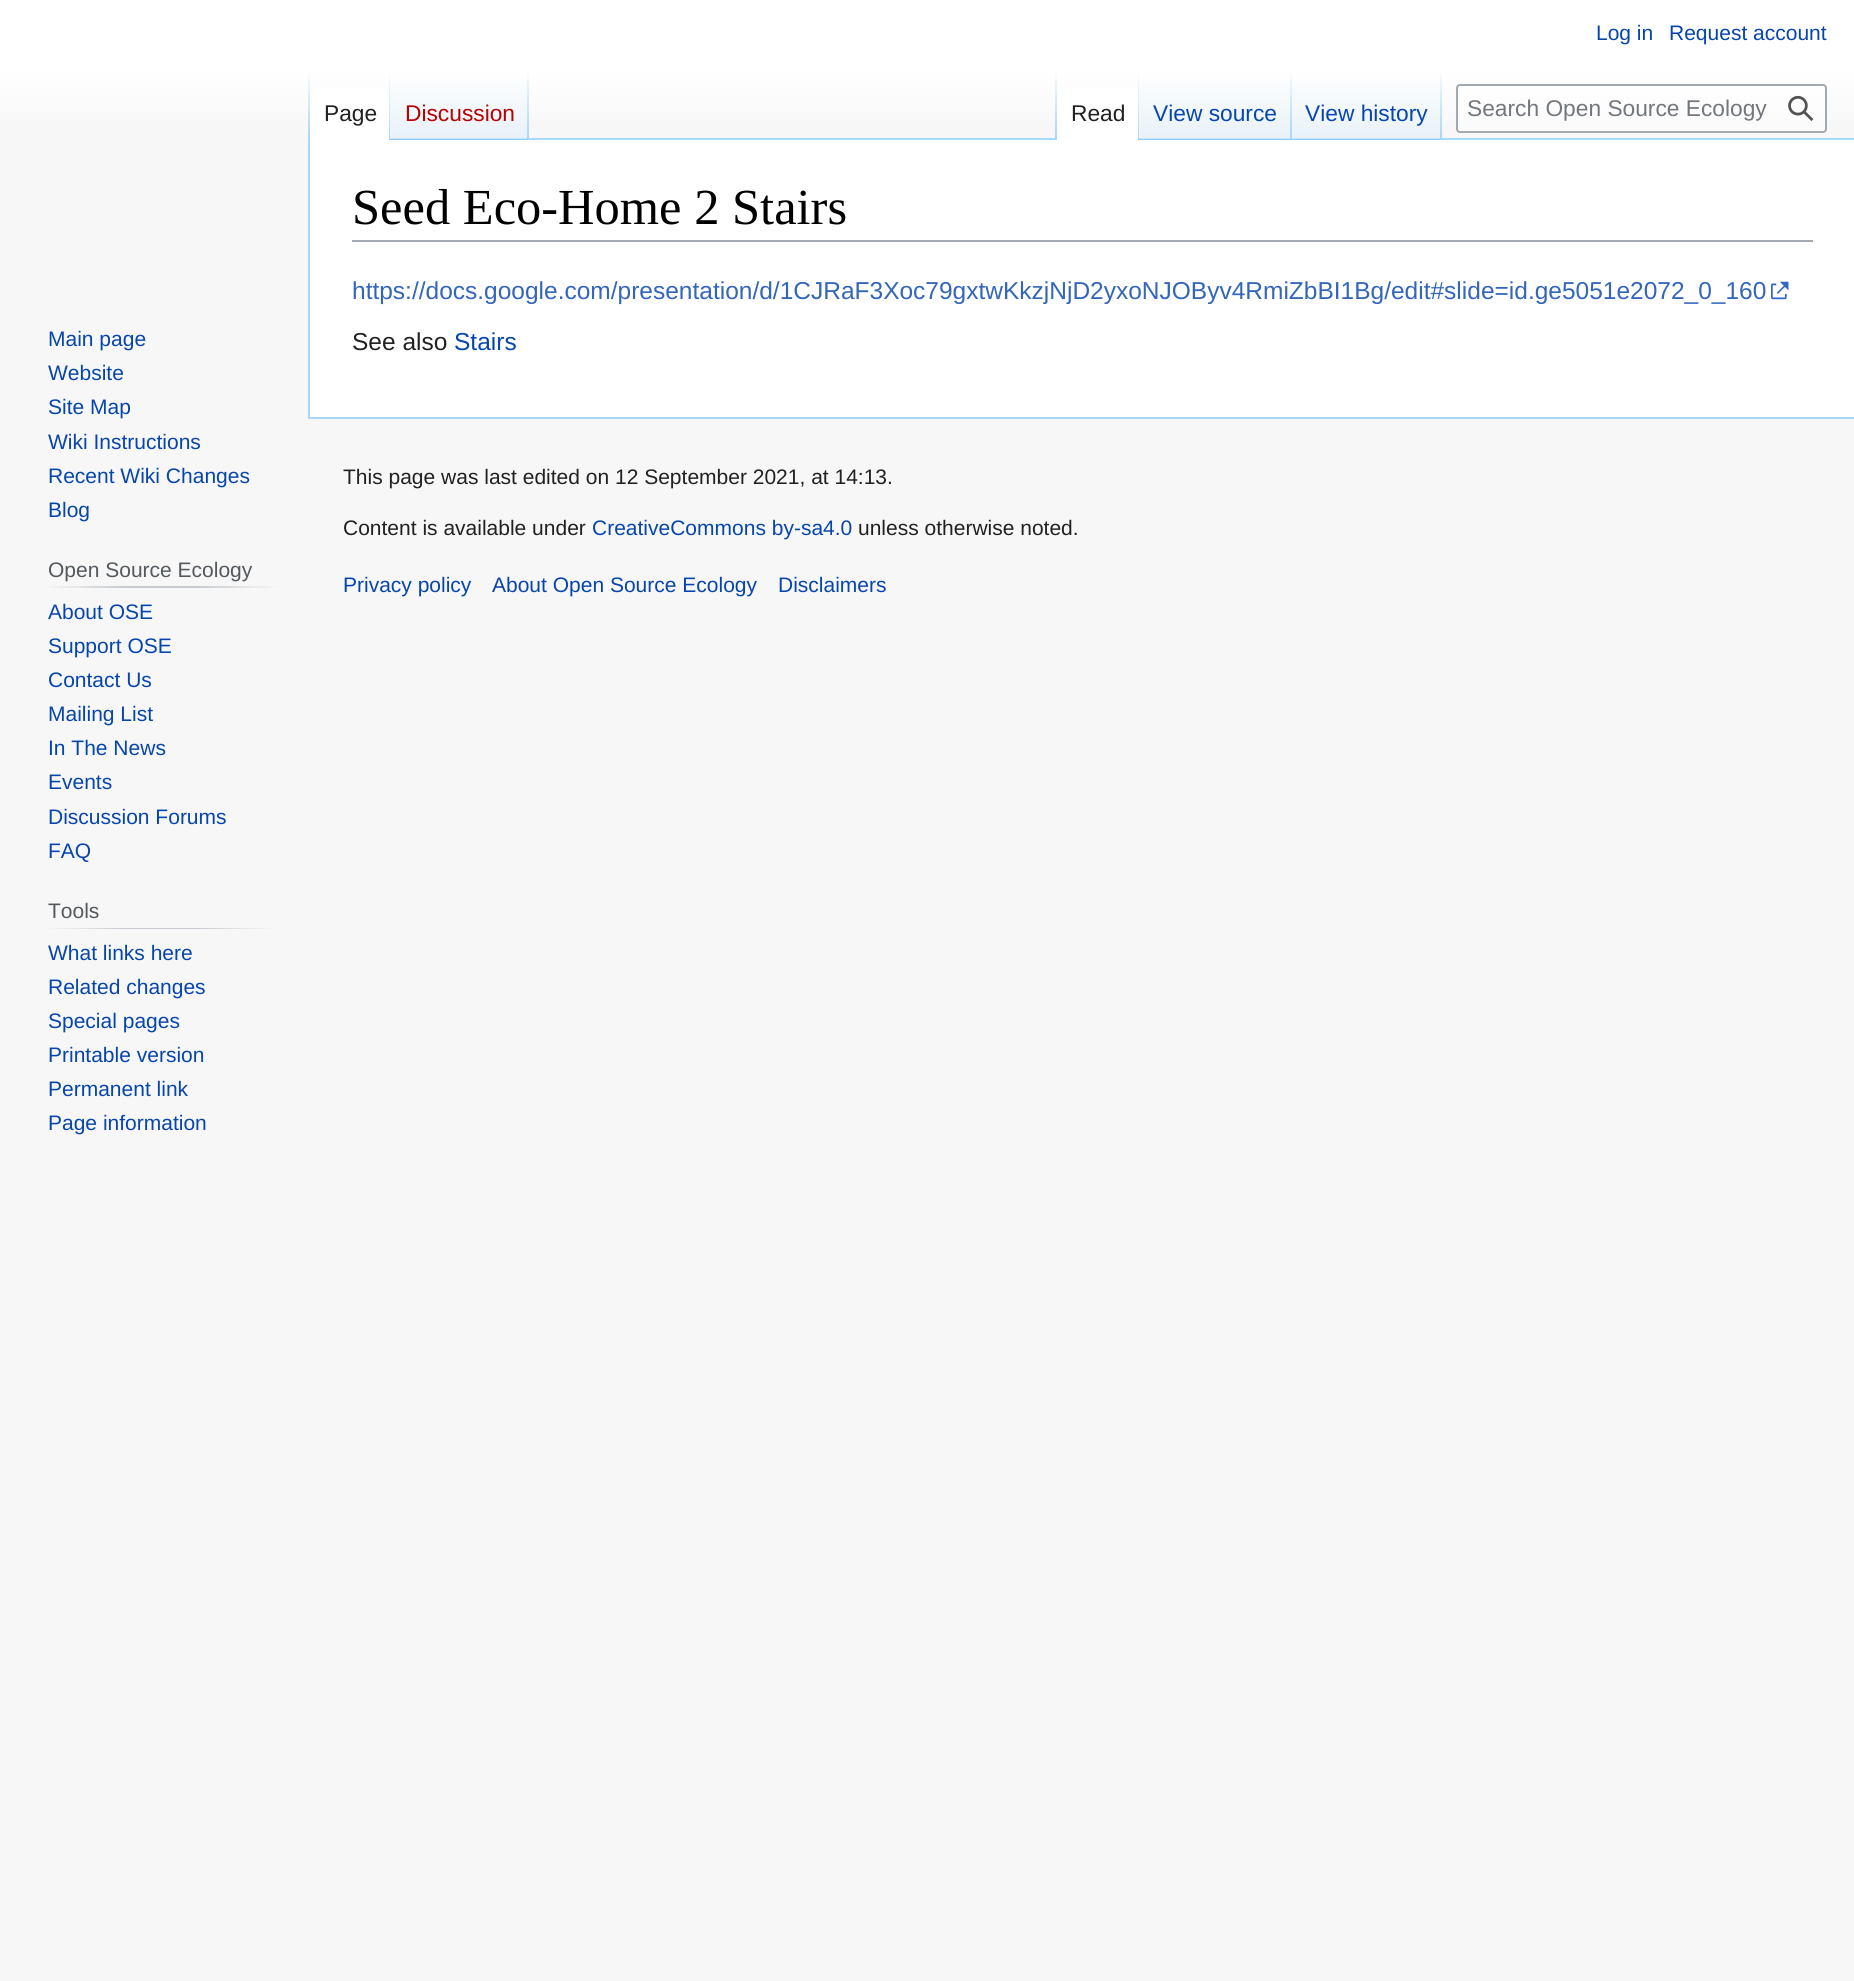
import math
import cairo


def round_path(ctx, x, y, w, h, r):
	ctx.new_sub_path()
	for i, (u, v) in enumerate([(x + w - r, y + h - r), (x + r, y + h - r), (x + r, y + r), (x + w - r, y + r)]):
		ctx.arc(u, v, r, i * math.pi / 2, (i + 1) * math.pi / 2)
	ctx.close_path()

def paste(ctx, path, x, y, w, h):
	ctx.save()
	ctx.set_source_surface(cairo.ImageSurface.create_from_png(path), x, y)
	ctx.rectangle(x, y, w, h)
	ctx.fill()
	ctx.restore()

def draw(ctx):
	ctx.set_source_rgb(0.965, 0.965, 0.965)
	ctx.paint()
	gradient = cairo.LinearGradient(928, 0, 928, 140)
	gradient.add_color_stop_rgba(0.5, 1, 1, 1, 1)
	gradient.add_color_stop_rgba(1, 0.965, 0.965, 0.965, 1)
	ctx.set_source(gradient)
	ctx.rectangle(0, 0, 1854, 121)
	ctx.fill()
	ctx.select_font_face('Liberation Sans')
	ctx.set_font_size(21)
	ctx.set_source_rgb(0.024, 0.271, 0.678)
	ctx.move_to(1596, 40)
	ctx.show_text('Log in')
	ctx.move_to(1669, 40)
	ctx.show_text('Request account')
	ctx.set_source_rgb(0.655, 0.843, 0.976)
	ctx.rectangle(308, 417, 1546, 2)
	ctx.fill()
	ctx.rectangle(308, 138, 2, 280)
	ctx.fill()
	gradient = cairo.LinearGradient(309, 70, 309, 140)
	gradient.add_color_stop_rgba(0, 0.655, 0.843, 0.976, 0)
	gradient.add_color_stop_rgba(1, 0.655, 0.843, 0.976, 1)
	ctx.set_source(gradient)
	ctx.rectangle(308, 70, 2, 70)
	ctx.fill()
	ctx.set_source_rgb(1, 1, 1)
	ctx.rectangle(310, 89, 79, 51)
	ctx.fill()
	gradient = cairo.LinearGradient(389, 70, 389, 140)
	gradient.add_color_stop_rgba(0, 1, 1, 1, 1)
	gradient.add_color_stop_rgba(1, 0.655, 0.843, 0.976, 1)
	ctx.set_source(gradient)
	ctx.rectangle(389, 70, 1, 70)
	ctx.fill()
	ctx.set_font_size(22.75)
	ctx.set_source_rgb(0.125, 0.129, 0.133)
	ctx.move_to(324, 121)
	ctx.show_text('Page')
	gradient = cairo.LinearGradient(459, 140, 459, 70)
	gradient.add_color_stop_rgba(0, 0.467, 0.757, 0.965, 1)
	gradient.add_color_stop_rgba(0.03, 0.91, 0.949, 0.973, 1)
	gradient.add_color_stop_rgba(1, 1, 1, 1, 1)
	ctx.set_source(gradient)
	ctx.rectangle(390, 80, 139, 60)
	ctx.fill()
	gradient = cairo.LinearGradient(528, 70, 528, 140)
	gradient.add_color_stop_rgba(0, 0.655, 0.843, 0.976, 0)
	gradient.add_color_stop_rgba(1, 0.655, 0.843, 0.976, 1)
	ctx.set_source(gradient)
	ctx.rectangle(527, 70, 2, 70)
	ctx.fill()
	ctx.set_source_rgb(0.729, 0, 0)
	ctx.move_to(405, 121)
	ctx.show_text('Discussion')
	ctx.set_source_rgb(0.655, 0.843, 0.976)
	ctx.rectangle(529, 138, 1325, 2)
	ctx.fill()
	gradient = cairo.LinearGradient(1056, 70, 1056, 140)
	gradient.add_color_stop_rgba(0, 0.655, 0.843, 0.976, 0)
	gradient.add_color_stop_rgba(1, 0.655, 0.843, 0.976, 1)
	ctx.set_source(gradient)
	ctx.rectangle(1055, 70, 2, 70)
	ctx.fill()
	ctx.set_source_rgb(1, 1, 1)
	ctx.rectangle(1057, 89, 81, 51)
	ctx.fill()
	gradient = cairo.LinearGradient(1138, 70, 1138, 140)
	gradient.add_color_stop_rgba(0, 1, 1, 1, 1)
	gradient.add_color_stop_rgba(1, 0.655, 0.843, 0.976, 1)
	ctx.set_source(gradient)
	ctx.rectangle(1138, 70, 1, 70)
	ctx.fill()
	ctx.set_source_rgb(0.125, 0.129, 0.133)
	ctx.move_to(1071, 121)
	ctx.show_text('Read')
	gradient = cairo.LinearGradient(1215, 140, 1215, 70)
	gradient.add_color_stop_rgba(0, 0.467, 0.757, 0.965, 1)
	gradient.add_color_stop_rgba(0.03, 0.91, 0.949, 0.973, 1)
	gradient.add_color_stop_rgba(1, 1, 1, 1, 1)
	ctx.set_source(gradient)
	ctx.rectangle(1139, 80, 153, 60)
	ctx.fill()
	gradient = cairo.LinearGradient(1291, 70, 1291, 140)
	gradient.add_color_stop_rgba(0, 0.655, 0.843, 0.976, 0)
	gradient.add_color_stop_rgba(1, 0.655, 0.843, 0.976, 1)
	ctx.set_source(gradient)
	ctx.rectangle(1290, 70, 2, 70)
	ctx.fill()
	ctx.set_source_rgb(0.024, 0.271, 0.678)
	ctx.move_to(1153, 121)
	ctx.show_text('View source')
	gradient = cairo.LinearGradient(1367, 140, 1367, 70)
	gradient.add_color_stop_rgba(0, 0.467, 0.757, 0.965, 1)
	gradient.add_color_stop_rgba(0.03, 0.91, 0.949, 0.973, 1)
	gradient.add_color_stop_rgba(1, 1, 1, 1, 1)
	ctx.set_source(gradient)
	ctx.rectangle(1292, 80, 150, 60)
	ctx.fill()
	gradient = cairo.LinearGradient(1441, 70, 1441, 140)
	gradient.add_color_stop_rgba(0, 0.655, 0.843, 0.976, 0)
	gradient.add_color_stop_rgba(1, 0.655, 0.843, 0.976, 1)
	ctx.set_source(gradient)
	ctx.rectangle(1440, 70, 2, 70)
	ctx.fill()
	ctx.set_source_rgb(0.024, 0.271, 0.678)
	ctx.move_to(1305, 121)
	ctx.show_text('View history')
	ctx.set_source_rgba(1, 1, 1, 0.5)
	round_path(ctx, 1457, 85, 369, 47, 3)
	ctx.fill_preserve()
	ctx.set_source_rgb(0.635, 0.663, 0.694)
	ctx.stroke()
	ctx.set_source_rgb(0.447, 0.467, 0.49)
	ctx.move_to(1467, 116)
	ctx.show_text('Search Open Source Ecology')
	paste(ctx, 'media/1.png', 1788, 95, 26, 26)
	ctx.set_font_size(21)
	ctx.set_source_rgb(0.024, 0.271, 0.678)
	for x, y, s in [
		(48, 346, 'Main page'),
		(48, 380, 'Website'),
		(48, 414, 'Site Map'),
		(48, 449, 'Wiki Instructions'),
		(48, 483, 'Recent Wiki Changes'),
		(48, 517, 'Blog'),
	]:
		ctx.move_to(x, y)
		ctx.show_text(s)
	gradient = cairo.LinearGradient(47, 587, 277, 587)
	gradient.add_color_stop_rgba(0, 0.965, 0.965, 0.965, 1)
	gradient.add_color_stop_rgba(0.33, 0.784, 0.8, 0.82, 1)
	gradient.add_color_stop_rgba(0.66, 0.784, 0.8, 0.82, 1)
	gradient.add_color_stop_rgba(1, 0.965, 0.965, 0.965, 1)
	ctx.set_source(gradient)
	ctx.rectangle(47, 586, 230, 2)
	ctx.fill()
	ctx.set_source_rgb(0.329, 0.349, 0.365)
	ctx.move_to(48, 577)
	ctx.show_text('Open Source Ecology')
	ctx.set_source_rgb(0.024, 0.271, 0.678)
	for x, y, s in [
		(48, 619, 'About OSE'),
		(48, 653, 'Support OSE'),
		(48, 687, 'Contact Us'),
		(48, 721, 'Mailing List'),
		(48, 755, 'In The News'),
		(48, 789, 'Events'),
		(48, 824, 'Discussion Forums'),
		(48, 858, 'FAQ'),
	]:
		ctx.move_to(x, y)
		ctx.show_text(s)
	gradient = cairo.LinearGradient(47, 928, 277, 928)
	gradient.add_color_stop_rgba(0, 0.965, 0.965, 0.965, 1)
	gradient.add_color_stop_rgba(0.33, 0.784, 0.8, 0.82, 1)
	gradient.add_color_stop_rgba(0.66, 0.784, 0.8, 0.82, 1)
	gradient.add_color_stop_rgba(1, 0.965, 0.965, 0.965, 1)
	ctx.set_source(gradient)
	ctx.rectangle(47, 928, 230, 1)
	ctx.fill()
	ctx.set_source_rgb(0.329, 0.349, 0.365)
	ctx.move_to(48, 918)
	ctx.show_text('Tools')
	ctx.set_source_rgb(0.024, 0.271, 0.678)
	for x, y, s in [
		(48, 960, 'What links here'),
		(48, 994, 'Related changes'),
		(48, 1028, 'Special pages'),
		(48, 1062, 'Printable version'),
		(48, 1096, 'Permanent link'),
		(48, 1130, 'Page information'),
	]:
		ctx.move_to(x, y)
		ctx.show_text(s)
	ctx.set_source_rgb(1, 1, 1)
	ctx.rectangle(310, 140, 1544, 277)
	ctx.fill()
	ctx.set_source_rgb(0.635, 0.663, 0.694)
	ctx.rectangle(352, 240, 1461, 2)
	ctx.fill()
	ctx.select_font_face('Liberation Serif')
	ctx.set_font_size(50.5)
	ctx.set_source_rgb(0, 0, 0)
	ctx.move_to(352, 224)
	ctx.show_text('Seed Eco-Home 2 Stairs')
	ctx.select_font_face('Liberation Sans')
	ctx.set_font_size(24.5)
	ctx.set_source_rgb(0.2, 0.4, 0.733)
	ctx.move_to(352, 299)
	ctx.show_text('https://docs.google.com/presentation/d/1CJRaF3Xoc79gxtwKkzjNjD2yxoNJOByv4RmiZbBI1Bg/edit#slide=id.ge5051e2072_0_160')
	paste(ctx, 'media/2.png', 1771, 281, 18, 19)
	ctx.set_source_rgb(0.125, 0.129, 0.133)
	ctx.move_to(352, 350)
	ctx.show_text('See also')
	ctx.set_source_rgb(0.024, 0.271, 0.678)
	ctx.move_to(454, 350)
	ctx.show_text('Stairs')
	ctx.set_font_size(21)
	ctx.set_source_rgb(0.125, 0.129, 0.133)
	ctx.move_to(343, 484)
	ctx.show_text('This page was last edited on 12 September 2021, at 14:13.')
	ctx.move_to(343, 535)
	ctx.show_text('Content is available under')
	ctx.set_source_rgb(0.024, 0.271, 0.678)
	ctx.move_to(592, 535)
	ctx.show_text('CreativeCommons by-sa4.0')
	ctx.set_source_rgb(0.125, 0.129, 0.133)
	ctx.move_to(858, 535)
	ctx.show_text('unless otherwise noted.')
	ctx.set_source_rgb(0.024, 0.271, 0.678)
	for x, y, s in [
		(343, 592, 'Privacy policy'),
		(492, 592, 'About Open Source Ecology'),
		(778, 592, 'Disclaimers'),
	]:
		ctx.move_to(x, y)
		ctx.show_text(s)


surface = cairo.ImageSurface(cairo.FORMAT_RGB24, 1854, 1981)
ctx = cairo.Context(surface)
options = cairo.FontOptions()
options.set_hint_metrics(cairo.HINT_METRICS_OFF)
options.set_hint_style(cairo.HINT_STYLE_NONE)
ctx.set_font_options(options)
ctx.set_miter_limit(4)
draw(ctx)
surface.write_to_png('image.png')
